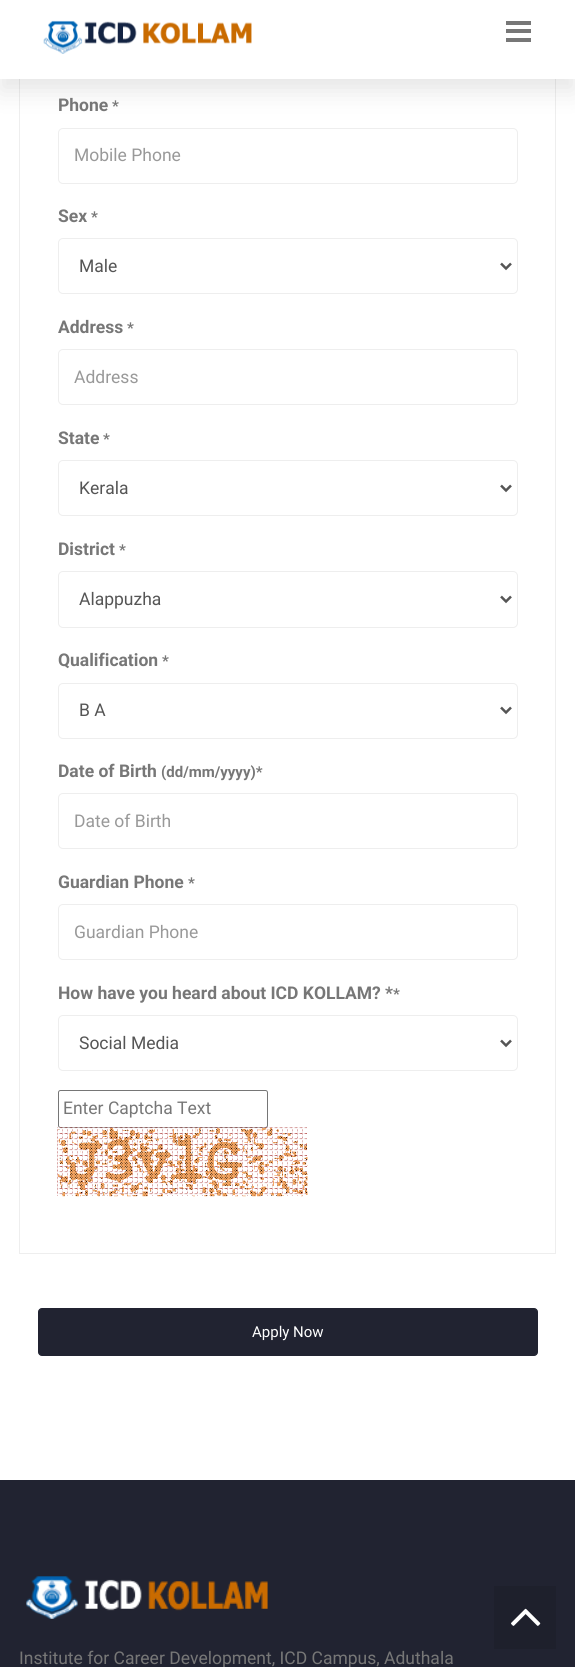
import math
import cairo


def round_path(ctx, x, y, w, h, r):
	ctx.new_sub_path()
	for i, (u, v) in enumerate([(x + w - r, y + h - r), (x + r, y + h - r), (x + r, y + r), (x + w - r, y + r)]):
		ctx.arc(u, v, r, i * math.pi / 2, (i + 1) * math.pi / 2)
	ctx.close_path()

def blur_box(ctx, x, y, w, h, r, blur, alpha):
	ctx.push_group_with_content(cairo.CONTENT_ALPHA)
	ctx.set_operator(cairo.OPERATOR_SOURCE)
	for i in range(15, -16, -2):
		e = blur * i / 6
		if min(w, h) + 2 * e > 0:
			ctx.set_source_rgba(0, 0, 0, alpha * math.erfc((i - 1) / 8.5) / 2)
			round_path(ctx, x - e, y - e, w + 2 * e, h + 2 * e, max(0, min(r + e + blur * .6, min(w, h) / 2 + e)))
			ctx.fill()
	ctx.mask(ctx.pop_group())

def paste(ctx, path, x, y, w, h):
	ctx.save()
	ctx.set_source_surface(cairo.ImageSurface.create_from_png(path), x, y)
	ctx.rectangle(x, y, w, h)
	ctx.fill()
	ctx.restore()

def draw(ctx):
	ctx.set_source_rgb(1, 1, 1)
	ctx.paint()
	ctx.rectangle(19.5, -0.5, 536, 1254)
	ctx.set_source_rgb(0.933, 0.933, 0.933)
	ctx.set_line_width(1)
	ctx.stroke()
	round_path(ctx, 58.5, 128.5, 459, 55, 4.5)
	ctx.stroke()
	ctx.set_source_rgb(0, 0, 0)
	blur_box(ctx, 0, 13, 575, 78, 0, 12.5, 0.1)
	ctx.set_source_rgb(1, 1, 1)
	ctx.rectangle(0, 0, 575, 79)
	ctx.fill()
	paste(ctx, 'media/1.png', 43, 20, 209, 34)
	ctx.set_source_rgb(0.467, 0.467, 0.467)
	ctx.rectangle(506, 21, 25, 4)
	ctx.rectangle(506, 29, 25, 4)
	ctx.rectangle(506, 38, 25, 4)
	ctx.fill()
	ctx.select_font_face('Roboto', cairo.FONT_SLANT_NORMAL, cairo.FONT_WEIGHT_BOLD)
	ctx.set_font_size(17.5)
	ctx.move_to(58, 111)
	ctx.show_text('Phone')
	ctx.set_font_size(15)
	ctx.move_to(112, 111)
	ctx.show_text('*')
	ctx.select_font_face('Roboto')
	ctx.set_font_size(17.5)
	ctx.set_source_rgb(0.6, 0.6, 0.6)
	ctx.move_to(74, 161)
	ctx.show_text('Mobile Phone')
	ctx.select_font_face('Roboto', cairo.FONT_SLANT_NORMAL, cairo.FONT_WEIGHT_BOLD)
	ctx.set_source_rgb(0.467, 0.467, 0.467)
	ctx.move_to(58, 222)
	ctx.show_text('Sex')
	ctx.set_font_size(15)
	ctx.move_to(91, 222)
	ctx.show_text('*')
	round_path(ctx, 58.5, 238.5, 459, 55, 4.5)
	ctx.set_source_rgb(0.933, 0.933, 0.933)
	ctx.stroke()
	ctx.new_path()
	ctx.move_to(501, 263.5)
	ctx.line_to(506, 268.5)
	ctx.line_to(511, 263.5)
	ctx.set_source_rgb(0.333, 0.333, 0.333)
	ctx.set_line_width(2.5)
	ctx.stroke()
	ctx.select_font_face('Roboto')
	ctx.set_font_size(17.5)
	ctx.move_to(79, 272)
	ctx.show_text('Male')
	ctx.select_font_face('Roboto', cairo.FONT_SLANT_NORMAL, cairo.FONT_WEIGHT_BOLD)
	ctx.set_source_rgb(0.467, 0.467, 0.467)
	ctx.move_to(58, 333)
	ctx.show_text('Address')
	ctx.set_font_size(15)
	ctx.move_to(127, 333)
	ctx.show_text('*')
	round_path(ctx, 58.5, 349.5, 459, 55, 4.5)
	ctx.set_source_rgb(0.933, 0.933, 0.933)
	ctx.set_line_width(1)
	ctx.stroke()
	ctx.select_font_face('Roboto')
	ctx.set_font_size(17.5)
	ctx.set_source_rgb(0.6, 0.6, 0.6)
	ctx.move_to(74, 383)
	ctx.show_text('Address')
	ctx.select_font_face('Roboto', cairo.FONT_SLANT_NORMAL, cairo.FONT_WEIGHT_BOLD)
	ctx.set_source_rgb(0.467, 0.467, 0.467)
	ctx.move_to(58, 444)
	ctx.show_text('State')
	ctx.set_font_size(15)
	ctx.move_to(103, 444)
	ctx.show_text('*')
	round_path(ctx, 58.5, 460.5, 459, 55, 4.5)
	ctx.set_source_rgb(0.933, 0.933, 0.933)
	ctx.stroke()
	ctx.new_path()
	ctx.move_to(501, 485.5)
	ctx.line_to(506, 490.5)
	ctx.line_to(511, 485.5)
	ctx.set_source_rgb(0.333, 0.333, 0.333)
	ctx.set_line_width(2.5)
	ctx.stroke()
	ctx.select_font_face('Roboto')
	ctx.set_font_size(17.5)
	ctx.move_to(79, 494)
	ctx.show_text('Kerala')
	ctx.select_font_face('Roboto', cairo.FONT_SLANT_NORMAL, cairo.FONT_WEIGHT_BOLD)
	ctx.set_source_rgb(0.467, 0.467, 0.467)
	ctx.move_to(58, 555)
	ctx.show_text('District')
	ctx.set_font_size(15)
	ctx.move_to(119, 555)
	ctx.show_text('*')
	round_path(ctx, 58.5, 571.5, 459, 56, 4.5)
	ctx.set_source_rgb(0.933, 0.933, 0.933)
	ctx.set_line_width(1)
	ctx.stroke()
	ctx.new_path()
	ctx.move_to(501, 596.5)
	ctx.line_to(506, 601.5)
	ctx.line_to(511, 596.5)
	ctx.set_source_rgb(0.333, 0.333, 0.333)
	ctx.set_line_width(2.5)
	ctx.stroke()
	ctx.select_font_face('Roboto')
	ctx.set_font_size(17.5)
	ctx.move_to(79, 605)
	ctx.show_text('Alappuzha')
	ctx.select_font_face('Roboto', cairo.FONT_SLANT_NORMAL, cairo.FONT_WEIGHT_BOLD)
	ctx.set_source_rgb(0.467, 0.467, 0.467)
	ctx.move_to(58, 666)
	ctx.show_text('Qualification')
	ctx.set_font_size(15)
	ctx.move_to(162, 666)
	ctx.show_text('*')
	round_path(ctx, 58.5, 683.5, 459, 55, 4.5)
	ctx.set_source_rgb(0.933, 0.933, 0.933)
	ctx.set_line_width(1)
	ctx.stroke()
	ctx.new_path()
	ctx.move_to(501, 707.5)
	ctx.line_to(506, 712.5)
	ctx.line_to(511, 707.5)
	ctx.set_source_rgb(0.333, 0.333, 0.333)
	ctx.set_line_width(2.5)
	ctx.stroke()
	ctx.select_font_face('Roboto')
	ctx.set_font_size(17.5)
	ctx.move_to(79, 716)
	ctx.show_text('B A')
	ctx.select_font_face('Roboto', cairo.FONT_SLANT_NORMAL, cairo.FONT_WEIGHT_BOLD)
	ctx.set_source_rgb(0.467, 0.467, 0.467)
	ctx.move_to(58, 777)
	ctx.show_text('Date of Birth')
	ctx.set_font_size(15)
	ctx.move_to(161, 777)
	ctx.show_text('(dd/mm/yyyy)*')
	round_path(ctx, 58.5, 793.5, 459, 55, 4.5)
	ctx.set_source_rgb(0.933, 0.933, 0.933)
	ctx.set_line_width(1)
	ctx.stroke()
	ctx.select_font_face('Roboto')
	ctx.set_font_size(17.5)
	ctx.set_source_rgb(0.6, 0.6, 0.6)
	ctx.move_to(74, 827)
	ctx.show_text('Date of Birth')
	ctx.select_font_face('Roboto', cairo.FONT_SLANT_NORMAL, cairo.FONT_WEIGHT_BOLD)
	ctx.set_source_rgb(0.467, 0.467, 0.467)
	ctx.move_to(58, 888)
	ctx.show_text('Guardian Phone')
	ctx.set_font_size(15)
	ctx.move_to(188, 888)
	ctx.show_text('*')
	round_path(ctx, 58.5, 904.5, 459, 55, 4.5)
	ctx.set_source_rgb(0.933, 0.933, 0.933)
	ctx.stroke()
	ctx.select_font_face('Roboto')
	ctx.set_font_size(17.5)
	ctx.set_source_rgb(0.6, 0.6, 0.6)
	ctx.move_to(74, 938)
	ctx.show_text('Guardian Phone')
	ctx.select_font_face('Roboto', cairo.FONT_SLANT_NORMAL, cairo.FONT_WEIGHT_BOLD)
	ctx.set_source_rgb(0.467, 0.467, 0.467)
	ctx.move_to(58, 999)
	ctx.show_text('How have you heard about ICD KOLLAM? *')
	ctx.set_font_size(15)
	ctx.move_to(393, 999)
	ctx.show_text('*')
	round_path(ctx, 58.5, 1015.5, 459, 55, 4.5)
	ctx.set_source_rgb(0.933, 0.933, 0.933)
	ctx.stroke()
	ctx.new_path()
	ctx.move_to(501, 1040.5)
	ctx.line_to(506, 1045.5)
	ctx.line_to(511, 1040.5)
	ctx.set_source_rgb(0.333, 0.333, 0.333)
	ctx.set_line_width(2.5)
	ctx.stroke()
	ctx.select_font_face('Roboto')
	ctx.set_font_size(17.5)
	ctx.move_to(79, 1049)
	ctx.show_text('Social Media')
	round_path(ctx, 58.5, 1090.5, 209, 37, 2)
	ctx.set_source_rgb(0.463, 0.463, 0.463)
	ctx.set_line_width(1)
	ctx.stroke()
	ctx.set_source_rgb(0.467, 0.467, 0.467)
	ctx.move_to(63, 1114)
	ctx.show_text('Enter Captcha Text')
	paste(ctx, 'media/2.png', 57, 1127, 251, 70)
	ctx.set_source_rgb(0.129, 0.137, 0.192)
	round_path(ctx, 38.5, 1308.5, 499, 47, 3.5)
	ctx.fill_preserve()
	ctx.stroke()
	ctx.set_font_size(15)
	ctx.set_source_rgb(1, 1, 1)
	ctx.move_to(252, 1337)
	ctx.show_text('Apply Now')
	ctx.set_source_rgb(0.129, 0.137, 0.192)
	ctx.rectangle(0, 1480, 575, 187)
	ctx.fill()
	ctx.set_source_rgb(0.118, 0.125, 0.173)
	ctx.rectangle(494, 1586, 62, 63)
	ctx.fill()
	paste(ctx, 'media/3.png', 511, 1608, 30, 18)
	paste(ctx, 'media/4.png', 26, 1576, 242, 43)
	ctx.set_font_size(17.5)
	ctx.set_source_rgb(0.467, 0.467, 0.467)
	ctx.move_to(19, 1664)
	ctx.show_text('Institute for Career Development, ICD Campus, Aduthala')


surface = cairo.ImageSurface(cairo.FORMAT_RGB24, 575, 1667)
ctx = cairo.Context(surface)
options = cairo.FontOptions()
options.set_hint_metrics(cairo.HINT_METRICS_OFF)
options.set_hint_style(cairo.HINT_STYLE_NONE)
ctx.set_font_options(options)
ctx.set_miter_limit(4)
draw(ctx)
surface.write_to_png('image.png')
